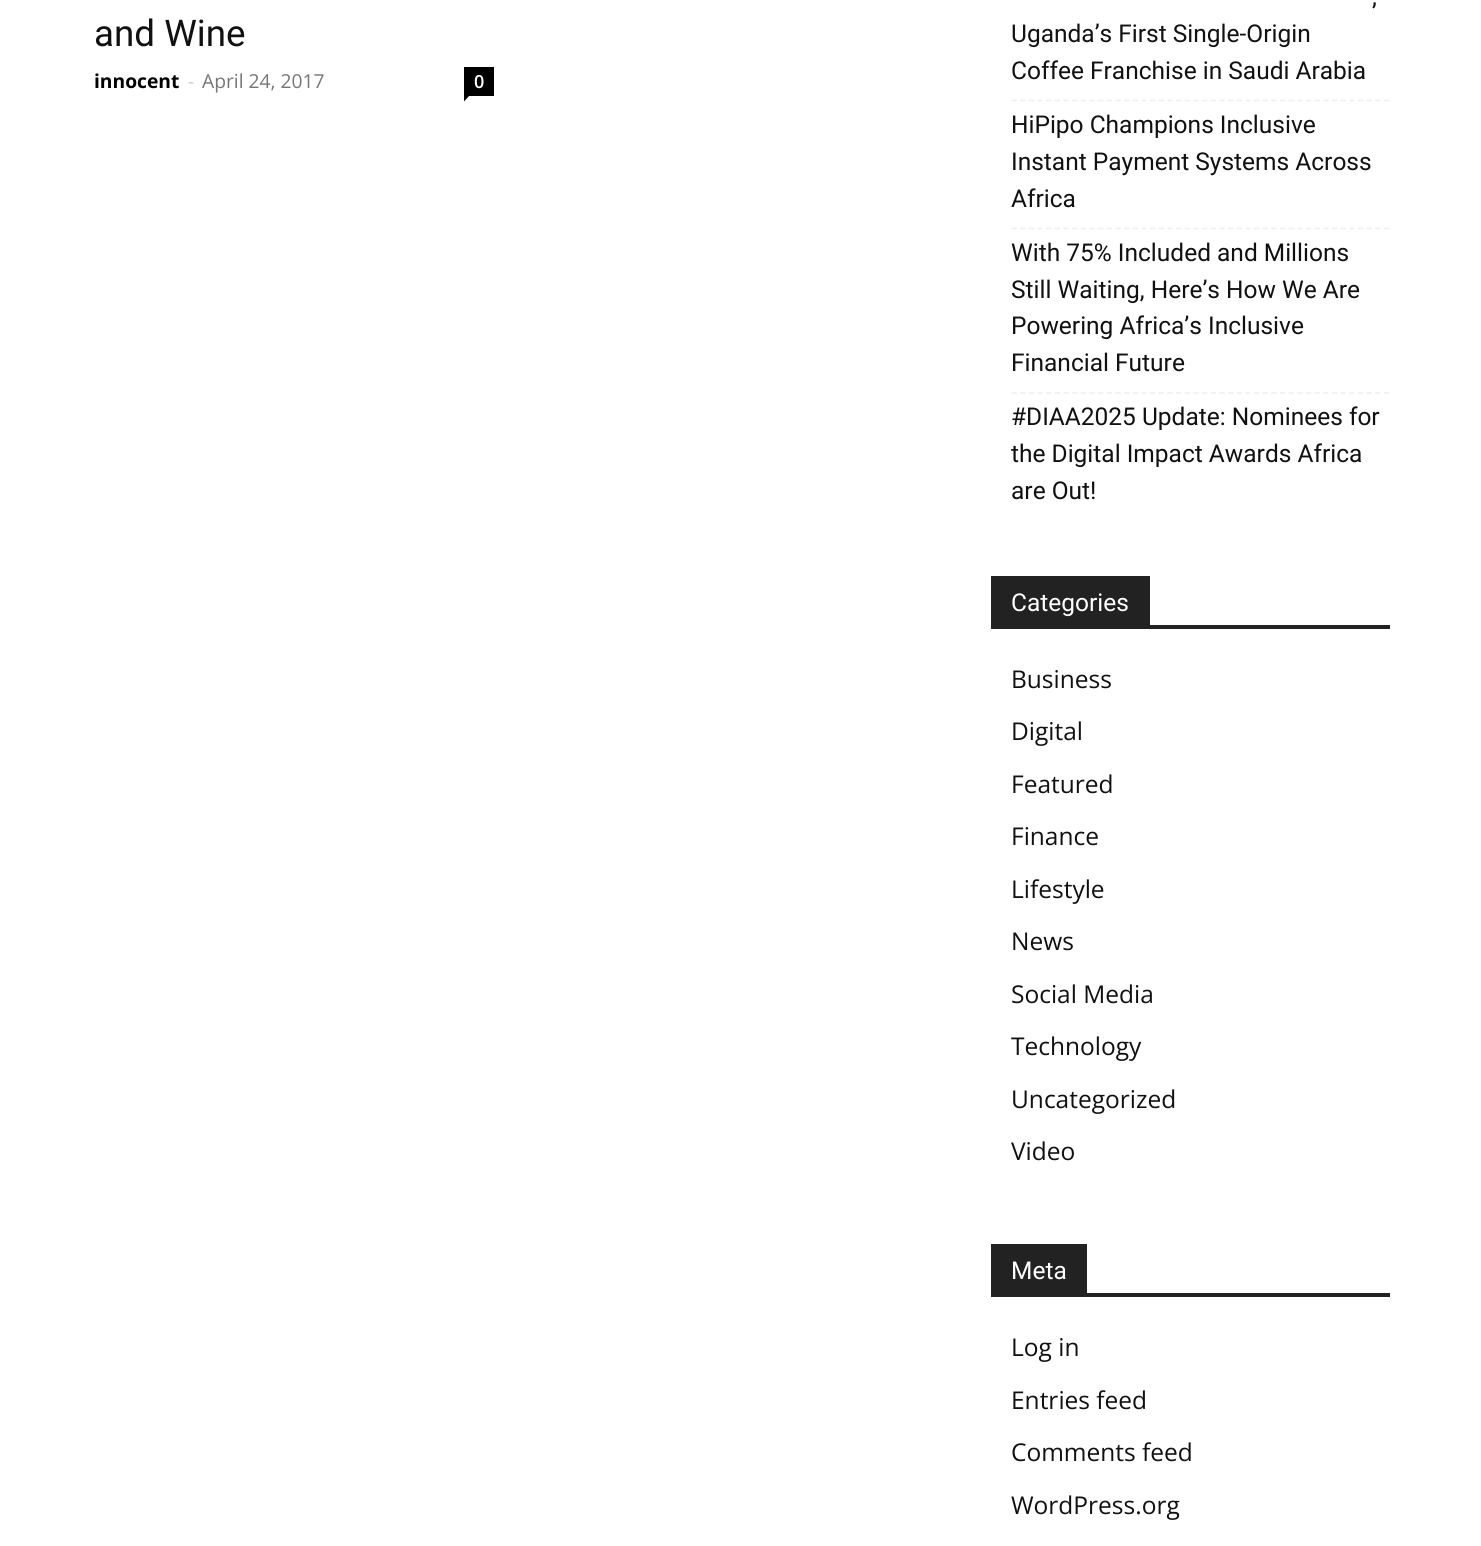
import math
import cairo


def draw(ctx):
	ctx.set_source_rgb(1, 1, 1)
	ctx.paint()
	ctx.select_font_face('Roboto')
	ctx.set_font_size(36.75)
	ctx.set_source_rgb(0.067, 0.067, 0.067)
	ctx.move_to(94, 46)
	ctx.show_text('and Wine')
	ctx.select_font_face('Open Sans', cairo.FONT_SLANT_NORMAL, cairo.FONT_WEIGHT_BOLD)
	ctx.set_font_size(19.25)
	ctx.set_source_rgb(0, 0, 0)
	ctx.move_to(94, 88)
	ctx.show_text('innocent')
	ctx.select_font_face('Open Sans')
	ctx.set_source_rgb(0.8, 0.8, 0.8)
	ctx.move_to(188, 88)
	ctx.show_text('-')
	ctx.set_source_rgb(0.463, 0.463, 0.463)
	ctx.move_to(202, 88)
	ctx.show_text('April 24, 2017')
	ctx.set_source_rgb(0, 0, 0)
	ctx.rectangle(464, 67, 30, 29)
	ctx.fill()
	ctx.select_font_face('Open Sans SemiBold')
	ctx.set_font_size(18)
	ctx.set_source_rgb(1, 1, 1)
	ctx.move_to(474, 88)
	ctx.show_text('0')
	ctx.set_source_rgb(0, 0, 0)
	ctx.new_path()
	ctx.move_to(464, 96)
	ctx.line_to(469, 96)
	ctx.line_to(464, 101.5)
	ctx.close_path()
	ctx.fill()
	ctx.new_path()
	ctx.move_to(1011.5, 100.5)
	ctx.line_to(1389.5, 100.5)
	ctx.set_source_rgb(0.945, 0.945, 0.945)
	ctx.set_line_width(1.8)
	ctx.set_dash([5.25, 3.41])
	ctx.stroke()
	ctx.select_font_face('Roboto')
	ctx.set_font_size(24.5)
	ctx.set_source_rgb(0.067, 0.067, 0.067)
	for x, y, s in [
		(1372, 5, ','),
		(1011, 42, 'Uganda’s First Single-Origin'),
		(1011, 79, 'Coffee Franchise in Saudi Arabia'),
	]:
		ctx.move_to(x, y)
		ctx.show_text(s)
	ctx.new_path()
	ctx.move_to(1011.5, 228.5)
	ctx.line_to(1389.5, 228.5)
	ctx.set_source_rgb(0.945, 0.945, 0.945)
	ctx.stroke()
	ctx.set_source_rgb(0.067, 0.067, 0.067)
	for x, y, s in [
		(1011, 133, 'HiPipo Champions Inclusive'),
		(1011, 170, 'Instant Payment Systems Across'),
		(1011, 207, 'Africa'),
	]:
		ctx.move_to(x, y)
		ctx.show_text(s)
	ctx.new_path()
	ctx.move_to(1011.5, 393)
	ctx.line_to(1389.5, 393)
	ctx.set_source_rgb(0.945, 0.945, 0.945)
	ctx.stroke()
	ctx.set_source_rgb(0.067, 0.067, 0.067)
	for x, y, s in [
		(1011, 261, 'With 75% Included and Millions'),
		(1011, 298, 'Still Waiting, Here’s How We Are'),
		(1011, 334, 'Powering Africa’s Inclusive'),
		(1011, 371, 'Financial Future'),
		(1011, 425, '#DIAA2025 Update: Nominees for'),
		(1011, 462, 'the Digital Impact Awards Africa'),
		(1011, 499, 'are Out!'),
	]:
		ctx.move_to(x, y)
		ctx.show_text(s)
	ctx.set_source_rgb(0.133, 0.133, 0.133)
	ctx.rectangle(991, 625, 399, 4)
	ctx.fill()
	ctx.rectangle(991, 576, 159, 49)
	ctx.fill()
	ctx.set_source_rgb(1, 1, 1)
	ctx.move_to(1011, 611)
	ctx.show_text('Categories')
	ctx.select_font_face('Open Sans')
	ctx.set_source_rgb(0.067, 0.067, 0.067)
	for x, y, s in [
		(1011, 688, 'Business'),
		(1011, 740, 'Digital'),
		(1011, 793, 'Featured'),
		(1011, 845, 'Finance'),
		(1011, 898, 'Lifestyle'),
		(1011, 950, 'News'),
		(1011, 1003, 'Social Media'),
		(1011, 1055, 'Technology'),
		(1011, 1108, 'Uncategorized'),
		(1011, 1160, 'Video'),
	]:
		ctx.move_to(x, y)
		ctx.show_text(s)
	ctx.set_source_rgb(0.133, 0.133, 0.133)
	ctx.rectangle(991, 1293, 399, 4)
	ctx.fill()
	ctx.rectangle(991, 1244, 96, 49)
	ctx.fill()
	ctx.select_font_face('Roboto')
	ctx.set_source_rgb(1, 1, 1)
	ctx.move_to(1011, 1279)
	ctx.show_text('Meta')
	ctx.select_font_face('Open Sans')
	ctx.set_source_rgb(0.067, 0.067, 0.067)
	for x, y, s in [
		(1011, 1356, 'Log in'),
		(1011, 1409, 'Entries feed'),
		(1011, 1461, 'Comments feed'),
		(1011, 1514, 'WordPress.org'),
	]:
		ctx.move_to(x, y)
		ctx.show_text(s)


surface = cairo.ImageSurface(cairo.FORMAT_RGB24, 1481, 1546)
ctx = cairo.Context(surface)
options = cairo.FontOptions()
options.set_hint_metrics(cairo.HINT_METRICS_OFF)
options.set_hint_style(cairo.HINT_STYLE_NONE)
ctx.set_font_options(options)
ctx.set_miter_limit(4)
draw(ctx)
surface.write_to_png('image.png')
